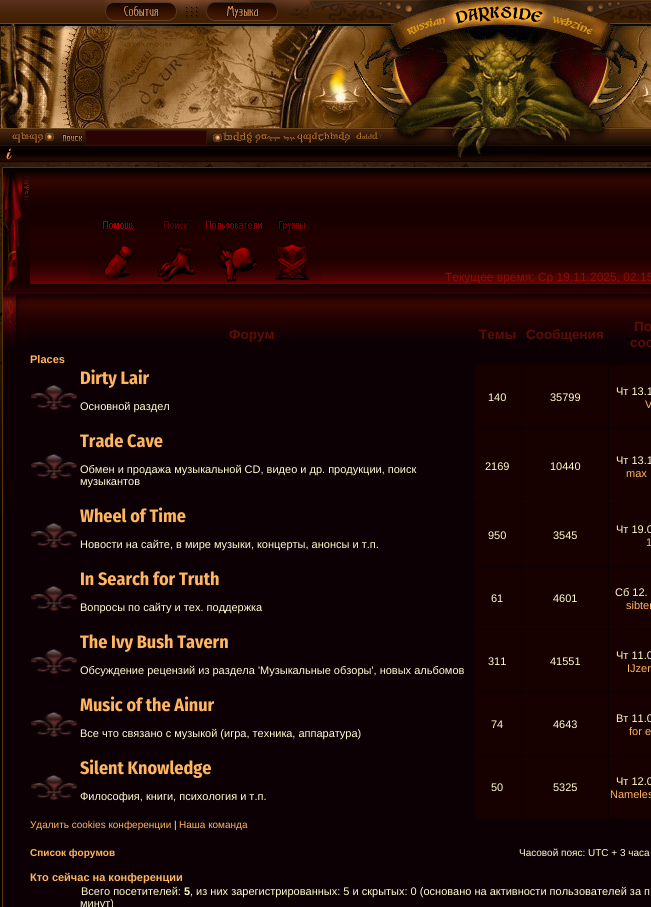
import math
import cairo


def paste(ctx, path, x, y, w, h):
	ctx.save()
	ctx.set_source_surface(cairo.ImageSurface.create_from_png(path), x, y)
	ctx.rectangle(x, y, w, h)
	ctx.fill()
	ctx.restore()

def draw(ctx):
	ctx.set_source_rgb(0, 0, 0)
	ctx.paint()
	paste(ctx, 'media/1.png', 0, 0, 51, 24)
	paste(ctx, 'media/2.png', 51, 0, 237, 24)
	paste(ctx, 'media/3.png', 105, 0, 72, 21)
	paste(ctx, 'media/4.png', 177, 0, 29, 18)
	paste(ctx, 'media/5.png', 206, 0, 72, 21)
	paste(ctx, 'media/6.png', 278, 0, 10, 18)
	paste(ctx, 'media/7.png', 288, 0, 363, 24)
	paste(ctx, 'media/8.png', 0, 25, 1, 103)
	paste(ctx, 'media/9.png', 1, 24, 650, 104)
	paste(ctx, 'media/10.png', 0, 128, 651, 18)
	paste(ctx, 'media/11.png', 12, 132, 42, 11)
	paste(ctx, 'media/12.png', 62, 134, 21, 8)
	ctx.set_source_rgb(0.169, 0.012, 0.012)
	ctx.rectangle(85.5, 130.5, 121, 15)
	ctx.fill_preserve()
	ctx.set_source_rgb(0.196, 0.078, 0.027)
	ctx.set_line_width(1)
	ctx.stroke()
	paste(ctx, 'media/13.png', 213, 131, 168, 12)
	paste(ctx, 'media/14.png', 393, 128, 216, 18)
	paste(ctx, 'media/15.png', 0, 146, 651, 16)
	paste(ctx, 'media/16.png', 6, 148, 6, 12)
	paste(ctx, 'media/17.png', 455, 146, 93, 16)
	paste(ctx, 'media/18.png', 0, 162, 651, 352)
	ctx.set_source_rgb(0.357, 0.208, 0.035)
	ctx.rectangle(2, 167, 649, 740)
	ctx.fill()
	ctx.set_source_rgb(0.051, 0, 0.02)
	ctx.rectangle(3, 338, 648, 569)
	ctx.fill()
	paste(ctx, 'media/19.png', 3, 168, 648, 126)
	paste(ctx, 'media/20.png', 3, 171, 27, 123)
	paste(ctx, 'media/21.png', 30, 225, 349, 59)
	paste(ctx, 'media/22.png', 89, 220, 58, 62)
	paste(ctx, 'media/23.png', 147, 220, 58, 62)
	paste(ctx, 'media/24.png', 205, 220, 58, 62)
	paste(ctx, 'media/25.png', 263, 220, 58, 62)
	paste(ctx, 'media/26.png', 379, 225, 272, 59)
	ctx.select_font_face('Liberation Sans')
	ctx.set_font_size(12)
	ctx.set_source_rgb(0.549, 0.051, 0.027)
	ctx.move_to(445, 281)
	ctx.show_text('Текущее время: Ср 19.11.2025, 02:15')
	paste(ctx, 'media/27.png', 28, 294, 623, 44)
	paste(ctx, 'media/28.png', 3, 294, 25, 67)
	ctx.select_font_face('Liberation Sans', cairo.FONT_SLANT_NORMAL, cairo.FONT_WEIGHT_BOLD)
	ctx.set_font_size(13.5)
	ctx.set_source_rgb(0.361, 0.051, 0.027)
	for x, y, s in [
		(229, 339, 'Форум'),
		(479, 339, 'Темы'),
		(526, 339, 'Сообщения'),
		(634, 331, 'По'),
		(630, 347, 'соо'),
	]:
		ctx.move_to(x, y)
		ctx.show_text(s)
	ctx.set_font_size(11)
	ctx.set_source_rgb(1, 0.714, 0.373)
	ctx.move_to(30, 363)
	ctx.show_text('Places')
	paste(ctx, 'media/29.png', 31, 385, 46, 25)
	ctx.select_font_face('Fira Sans Condensed', cairo.FONT_SLANT_NORMAL, cairo.FONT_WEIGHT_BOLD)
	ctx.set_font_size(18)
	ctx.move_to(80, 384)
	ctx.show_text('Dirty Lair')
	ctx.select_font_face('Liberation Sans')
	ctx.set_font_size(11)
	ctx.set_source_rgb(1, 1, 0.8)
	ctx.move_to(80, 410)
	ctx.show_text('Основной раздел')
	ctx.set_source_rgb(0.086, 0, 0)
	ctx.rectangle(475, 366, 46, 62)
	ctx.fill()
	ctx.set_source_rgb(1, 1, 0.8)
	ctx.move_to(488, 401)
	ctx.show_text('140')
	ctx.set_source_rgb(0.086, 0, 0)
	ctx.rectangle(522, 366, 86, 62)
	ctx.fill()
	ctx.set_source_rgb(1, 1, 0.8)
	ctx.move_to(550, 401)
	ctx.show_text('35799')
	ctx.set_source_rgb(0.086, 0, 0)
	ctx.rectangle(609, 366, 42, 62)
	ctx.fill()
	ctx.set_source_rgb(1, 1, 0.8)
	ctx.move_to(616, 395)
	ctx.show_text('Чт 13.1')
	ctx.set_source_rgb(1, 0.714, 0.373)
	ctx.move_to(645, 408)
	ctx.show_text('V')
	paste(ctx, 'media/29.png', 31, 454, 46, 25)
	ctx.select_font_face('Fira Sans Condensed', cairo.FONT_SLANT_NORMAL, cairo.FONT_WEIGHT_BOLD)
	ctx.set_font_size(18)
	ctx.move_to(80, 447)
	ctx.show_text('Trade Cave')
	ctx.select_font_face('Liberation Sans')
	ctx.set_font_size(11)
	ctx.set_source_rgb(1, 1, 0.8)
	ctx.move_to(80, 473)
	ctx.show_text('Обмен и продажа музыкальной CD, видео и др. продукции, поиск')
	ctx.move_to(80, 485)
	ctx.show_text('музыкантов')
	ctx.set_source_rgb(0.086, 0, 0)
	ctx.rectangle(475, 429, 46, 74)
	ctx.fill()
	ctx.set_source_rgb(1, 1, 0.8)
	ctx.move_to(485, 470)
	ctx.show_text('2169')
	ctx.set_source_rgb(0.086, 0, 0)
	ctx.rectangle(522, 429, 86, 74)
	ctx.fill()
	ctx.set_source_rgb(1, 1, 0.8)
	ctx.move_to(550, 470)
	ctx.show_text('10440')
	ctx.set_source_rgb(0.086, 0, 0)
	ctx.rectangle(609, 429, 42, 74)
	ctx.fill()
	ctx.set_source_rgb(1, 1, 0.8)
	ctx.move_to(616, 464)
	ctx.show_text('Чт 13.1')
	ctx.set_source_rgb(1, 0.714, 0.373)
	ctx.move_to(626, 477)
	ctx.show_text('max')
	paste(ctx, 'media/30.png', 31, 523, 46, 25)
	ctx.select_font_face('Fira Sans Condensed', cairo.FONT_SLANT_NORMAL, cairo.FONT_WEIGHT_BOLD)
	ctx.set_font_size(18)
	ctx.move_to(80, 522)
	ctx.show_text('Wheel of Time')
	ctx.select_font_face('Liberation Sans')
	ctx.set_font_size(11)
	ctx.set_source_rgb(1, 1, 0.8)
	ctx.move_to(80, 548)
	ctx.show_text('Новости на сайте, в мире музыки, концерты, анонсы и т.п.')
	ctx.set_source_rgb(0.086, 0, 0)
	ctx.rectangle(475, 504, 46, 62)
	ctx.fill()
	ctx.set_source_rgb(1, 1, 0.8)
	ctx.move_to(488, 539)
	ctx.show_text('950')
	ctx.set_source_rgb(0.086, 0, 0)
	ctx.rectangle(522, 504, 86, 62)
	ctx.fill()
	ctx.set_source_rgb(1, 1, 0.8)
	ctx.move_to(553, 539)
	ctx.show_text('3545')
	ctx.set_source_rgb(0.086, 0, 0)
	ctx.rectangle(609, 504, 42, 62)
	ctx.fill()
	ctx.set_source_rgb(1, 1, 0.8)
	ctx.move_to(616, 533)
	ctx.show_text('Чт 19.0')
	ctx.set_source_rgb(1, 0.714, 0.373)
	ctx.move_to(646, 546)
	ctx.show_text('1')
	paste(ctx, 'media/29.png', 31, 586, 46, 25)
	ctx.select_font_face('Fira Sans Condensed', cairo.FONT_SLANT_NORMAL, cairo.FONT_WEIGHT_BOLD)
	ctx.set_font_size(18)
	ctx.move_to(80, 585)
	ctx.show_text('In Search for Truth')
	ctx.select_font_face('Liberation Sans')
	ctx.set_font_size(11)
	ctx.set_source_rgb(1, 1, 0.8)
	ctx.move_to(80, 611)
	ctx.show_text('Вопросы по сайту и тех. поддержка')
	ctx.set_source_rgb(0.086, 0, 0)
	ctx.rectangle(475, 567, 46, 62)
	ctx.fill()
	ctx.set_source_rgb(1, 1, 0.8)
	ctx.move_to(491, 602)
	ctx.show_text('61')
	ctx.set_source_rgb(0.086, 0, 0)
	ctx.rectangle(522, 567, 86, 62)
	ctx.fill()
	ctx.set_source_rgb(1, 1, 0.8)
	ctx.move_to(553, 602)
	ctx.show_text('4601')
	ctx.set_source_rgb(0.086, 0, 0)
	ctx.rectangle(609, 567, 42, 62)
	ctx.fill()
	ctx.set_source_rgb(1, 1, 0.8)
	ctx.move_to(615, 596)
	ctx.show_text('Сб 12.')
	ctx.set_source_rgb(1, 0.714, 0.373)
	ctx.move_to(626, 609)
	ctx.show_text('sibter')
	paste(ctx, 'media/29.png', 31, 649, 46, 25)
	ctx.select_font_face('Fira Sans Condensed', cairo.FONT_SLANT_NORMAL, cairo.FONT_WEIGHT_BOLD)
	ctx.set_font_size(18)
	ctx.move_to(80, 648)
	ctx.show_text('The Ivy Bush Tavern')
	ctx.select_font_face('Liberation Sans')
	ctx.set_font_size(11)
	ctx.set_source_rgb(1, 1, 0.8)
	ctx.move_to(80, 674)
	ctx.show_text('Обсуждение рецензий из раздела \'Музыкальные обзоры\', новых альбомов')
	ctx.set_source_rgb(0.086, 0, 0)
	ctx.rectangle(475, 630, 46, 62)
	ctx.fill()
	ctx.set_source_rgb(1, 1, 0.8)
	ctx.move_to(488, 665)
	ctx.show_text('311')
	ctx.set_source_rgb(0.086, 0, 0)
	ctx.rectangle(522, 630, 86, 62)
	ctx.fill()
	ctx.set_source_rgb(1, 1, 0.8)
	ctx.move_to(550, 665)
	ctx.show_text('41551')
	ctx.set_source_rgb(0.086, 0, 0)
	ctx.rectangle(609, 630, 42, 62)
	ctx.fill()
	ctx.set_source_rgb(1, 1, 0.8)
	ctx.move_to(616, 659)
	ctx.show_text('Чт 11.0')
	ctx.set_source_rgb(1, 0.714, 0.373)
	ctx.move_to(627, 672)
	ctx.show_text('IJzer')
	paste(ctx, 'media/30.png', 31, 712, 46, 25)
	ctx.select_font_face('Fira Sans Condensed', cairo.FONT_SLANT_NORMAL, cairo.FONT_WEIGHT_BOLD)
	ctx.set_font_size(18)
	ctx.move_to(80, 711)
	ctx.show_text('Music of the Ainur')
	ctx.select_font_face('Liberation Sans')
	ctx.set_font_size(11)
	ctx.set_source_rgb(1, 1, 0.8)
	ctx.move_to(80, 737)
	ctx.show_text('Все что связано с музыкой (игра, техника, аппаратура)')
	ctx.set_source_rgb(0.086, 0, 0)
	ctx.rectangle(475, 693, 46, 62)
	ctx.fill()
	ctx.set_source_rgb(1, 1, 0.8)
	ctx.move_to(491, 728)
	ctx.show_text('74')
	ctx.set_source_rgb(0.086, 0, 0)
	ctx.rectangle(522, 693, 86, 62)
	ctx.fill()
	ctx.set_source_rgb(1, 1, 0.8)
	ctx.move_to(553, 728)
	ctx.show_text('4643')
	ctx.set_source_rgb(0.086, 0, 0)
	ctx.rectangle(609, 693, 42, 62)
	ctx.fill()
	ctx.set_source_rgb(1, 1, 0.8)
	ctx.move_to(616, 722)
	ctx.show_text('Вт 11.0')
	ctx.set_source_rgb(1, 0.714, 0.373)
	ctx.move_to(629, 735)
	ctx.show_text('for e')
	paste(ctx, 'media/29.png', 31, 775, 46, 25)
	ctx.select_font_face('Fira Sans Condensed', cairo.FONT_SLANT_NORMAL, cairo.FONT_WEIGHT_BOLD)
	ctx.set_font_size(18)
	ctx.move_to(80, 774)
	ctx.show_text('Silent Knowledge')
	ctx.select_font_face('Liberation Sans')
	ctx.set_font_size(11)
	ctx.set_source_rgb(1, 1, 0.8)
	ctx.move_to(80, 800)
	ctx.show_text('Философия, книги, психология и т.п.')
	ctx.set_source_rgb(0.086, 0, 0)
	ctx.rectangle(475, 756, 46, 62)
	ctx.fill()
	ctx.set_source_rgb(1, 1, 0.8)
	ctx.move_to(491, 791)
	ctx.show_text('50')
	ctx.set_source_rgb(0.086, 0, 0)
	ctx.rectangle(522, 756, 86, 62)
	ctx.fill()
	ctx.set_source_rgb(1, 1, 0.8)
	ctx.move_to(553, 791)
	ctx.show_text('5325')
	ctx.set_source_rgb(0.086, 0, 0)
	ctx.rectangle(609, 756, 42, 62)
	ctx.fill()
	ctx.set_source_rgb(1, 1, 0.8)
	ctx.move_to(616, 785)
	ctx.show_text('Чт 12.0')
	ctx.set_source_rgb(1, 0.714, 0.373)
	ctx.move_to(610, 798)
	ctx.show_text('Nameles')
	ctx.set_font_size(10)
	ctx.move_to(30, 828)
	ctx.show_text('Удалить cookies конференции')
	ctx.set_source_rgb(1, 1, 0.8)
	ctx.move_to(174, 828)
	ctx.show_text('|')
	ctx.set_source_rgb(1, 0.714, 0.373)
	ctx.move_to(179, 828)
	ctx.show_text('Наша команда')
	ctx.select_font_face('Liberation Sans', cairo.FONT_SLANT_NORMAL, cairo.FONT_WEIGHT_BOLD)
	ctx.move_to(30, 856)
	ctx.show_text('Список форумов')
	ctx.select_font_face('Liberation Sans')
	ctx.set_source_rgb(1, 1, 0.8)
	ctx.move_to(519, 856)
	ctx.show_text('Часовой пояс: UTC + 3 часа')
	ctx.select_font_face('Liberation Sans', cairo.FONT_SLANT_NORMAL, cairo.FONT_WEIGHT_BOLD)
	ctx.set_font_size(11)
	ctx.set_source_rgb(1, 0.714, 0.373)
	ctx.move_to(30, 881)
	ctx.show_text('Кто сейчас на конференции')
	ctx.select_font_face('Liberation Sans')
	ctx.set_source_rgb(1, 1, 0.8)
	ctx.move_to(81, 895)
	ctx.show_text('Всего посетителей:')
	ctx.select_font_face('Liberation Sans', cairo.FONT_SLANT_NORMAL, cairo.FONT_WEIGHT_BOLD)
	ctx.move_to(184, 895)
	ctx.show_text('5')
	ctx.select_font_face('Liberation Sans')
	ctx.move_to(190, 895)
	ctx.show_text(', из них зарегистрированных: 5 и скрытых: 0 (основано на активности пользователей за п')
	ctx.move_to(80, 907)
	ctx.show_text('минут)')


surface = cairo.ImageSurface(cairo.FORMAT_RGB24, 651, 907)
ctx = cairo.Context(surface)
options = cairo.FontOptions()
options.set_hint_metrics(cairo.HINT_METRICS_OFF)
options.set_hint_style(cairo.HINT_STYLE_NONE)
ctx.set_font_options(options)
ctx.set_miter_limit(4)
draw(ctx)
surface.write_to_png('image.png')
